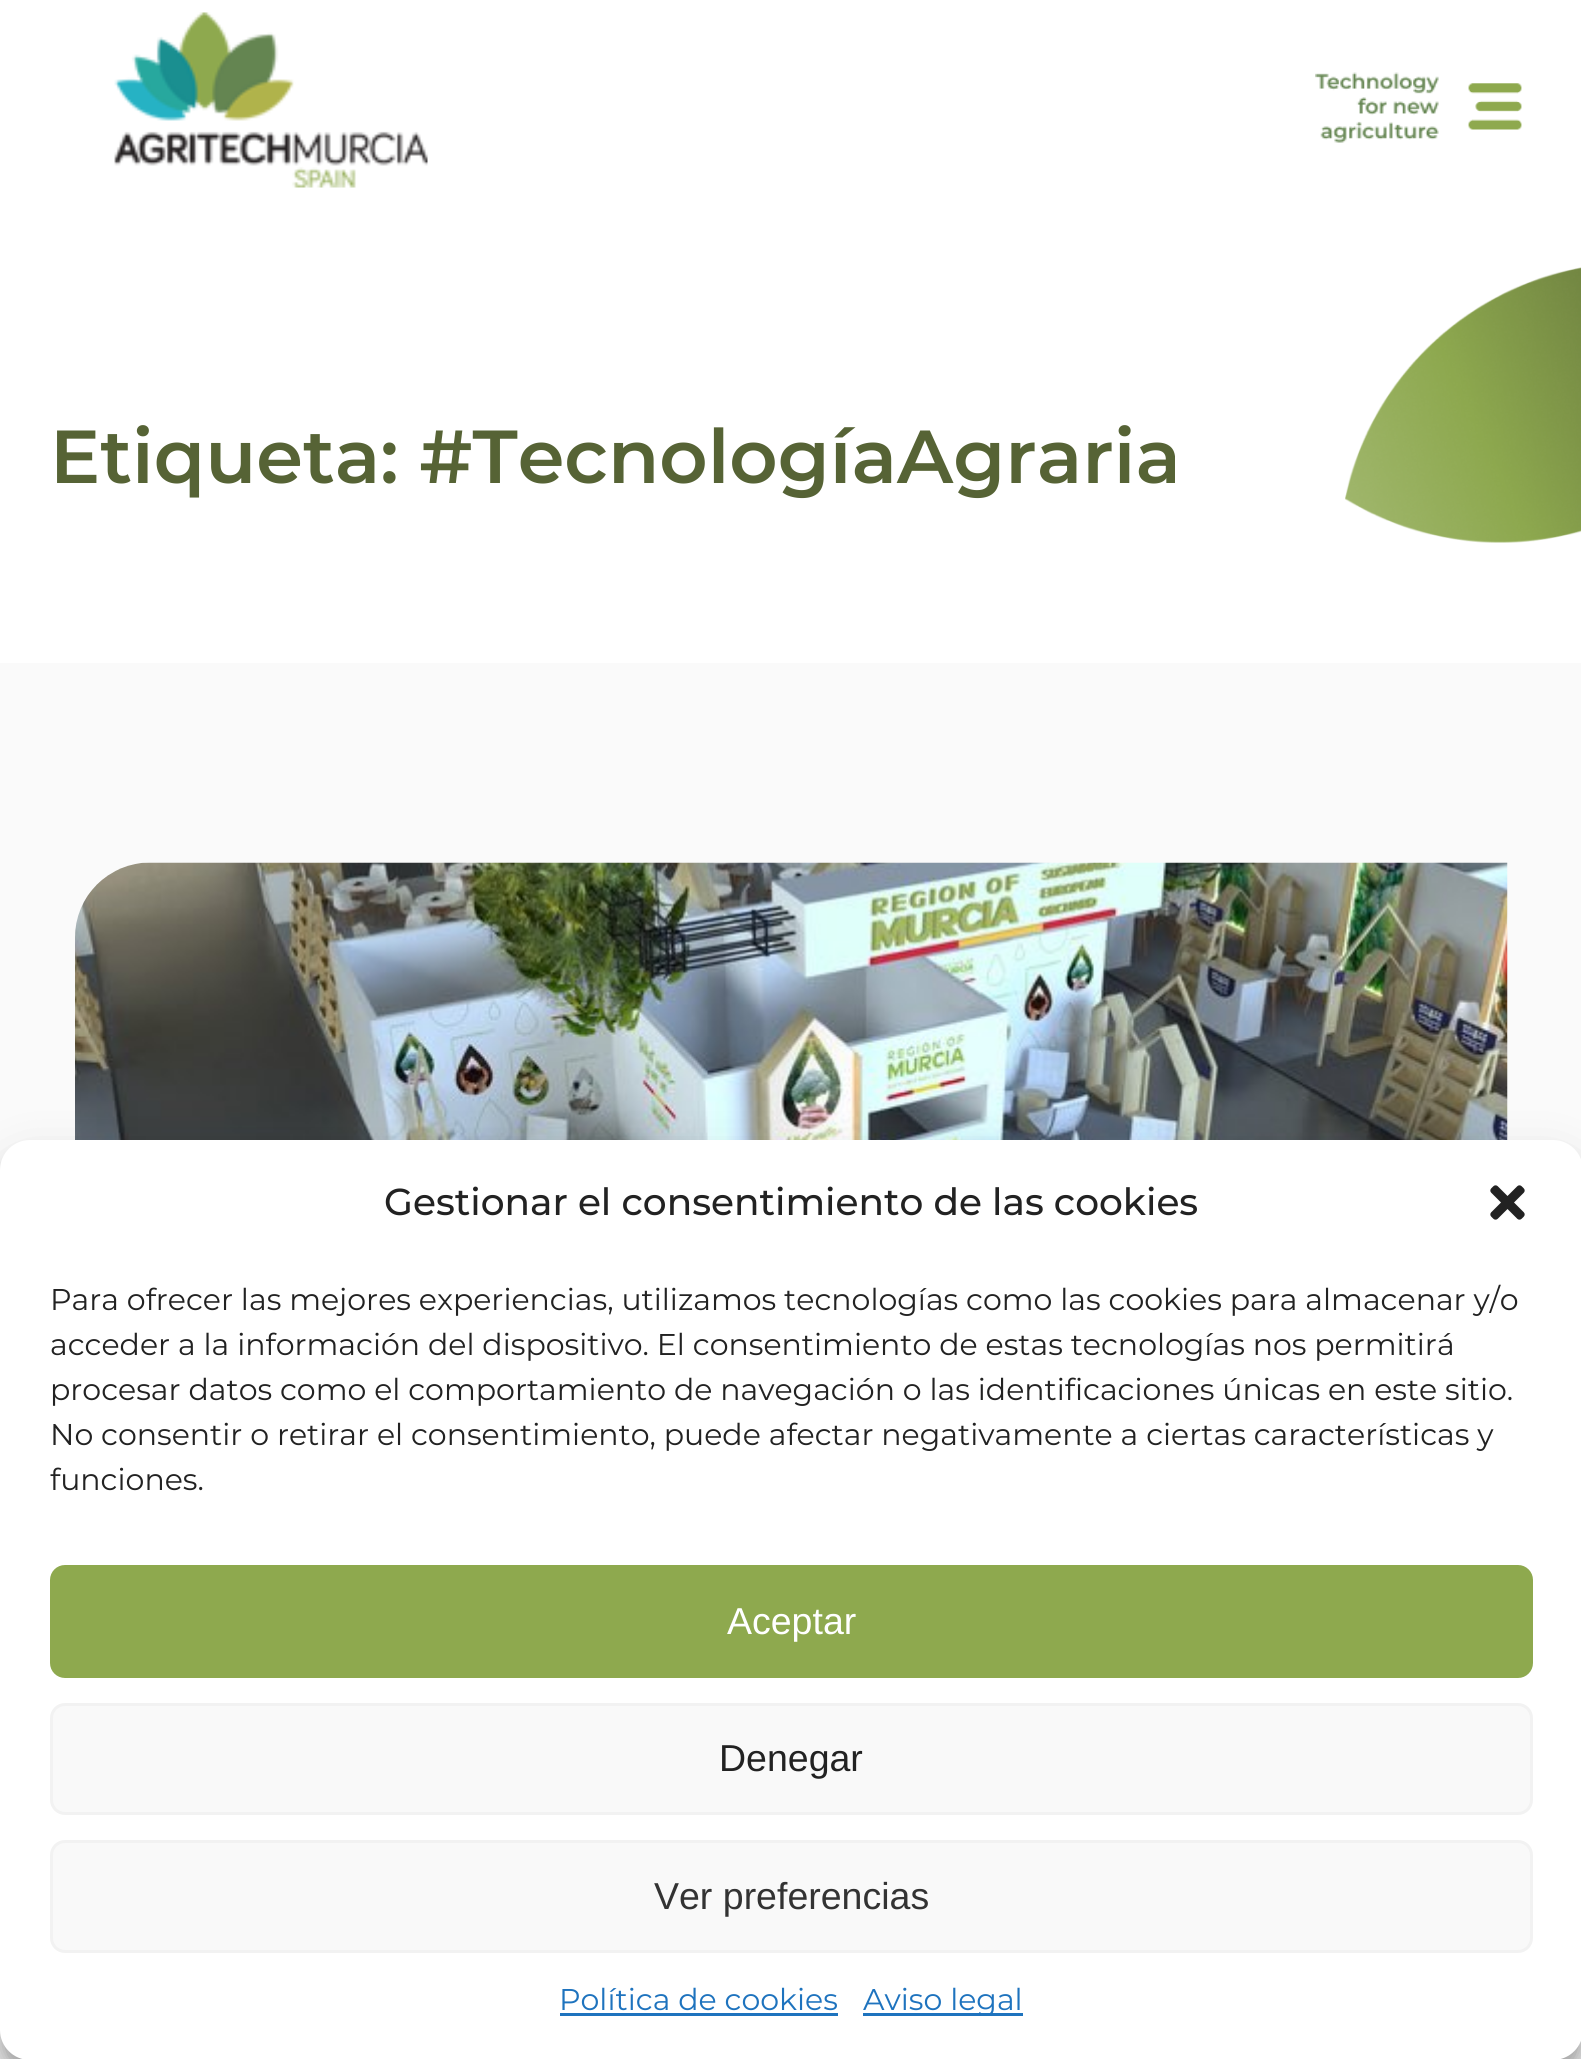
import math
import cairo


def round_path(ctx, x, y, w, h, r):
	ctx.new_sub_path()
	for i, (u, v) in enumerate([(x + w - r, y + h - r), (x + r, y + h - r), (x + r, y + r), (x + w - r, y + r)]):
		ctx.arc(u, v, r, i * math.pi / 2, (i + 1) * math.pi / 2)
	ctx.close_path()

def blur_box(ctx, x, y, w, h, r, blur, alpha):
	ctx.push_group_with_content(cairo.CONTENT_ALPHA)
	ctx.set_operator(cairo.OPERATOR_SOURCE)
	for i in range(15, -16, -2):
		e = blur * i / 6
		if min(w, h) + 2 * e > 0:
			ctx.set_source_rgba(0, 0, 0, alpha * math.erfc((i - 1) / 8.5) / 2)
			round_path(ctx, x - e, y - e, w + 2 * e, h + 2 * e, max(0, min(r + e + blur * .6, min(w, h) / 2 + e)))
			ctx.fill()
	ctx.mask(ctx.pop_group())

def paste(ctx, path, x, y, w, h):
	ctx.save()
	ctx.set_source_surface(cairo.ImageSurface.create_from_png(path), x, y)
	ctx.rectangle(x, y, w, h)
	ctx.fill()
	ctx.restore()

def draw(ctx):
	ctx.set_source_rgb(1, 1, 1)
	ctx.paint()
	paste(ctx, 'media/1.png', 114, 12, 314, 176)
	paste(ctx, 'media/2.png', 1315, 72, 124, 71)
	paste(ctx, 'media/3.png', 1468, 83, 54, 47)
	ctx.select_font_face('Montserrat SemiBold')
	ctx.set_font_size(75)
	ctx.set_source_rgb(0.337, 0.388, 0.208)
	ctx.move_to(50, 483)
	ctx.show_text('Etiqueta: #TecnologíaAgraria')
	paste(ctx, 'media/4.png', 1345, 267, 236, 276)
	ctx.set_source_rgb(0.98, 0.98, 0.98)
	ctx.rectangle(0, 663, 1581, 1396)
	ctx.fill()
	paste(ctx, 'media/5.png', 75, 862, 1433, 278)
	ctx.set_source_rgb(0, 0, 0)
	blur_box(ctx, 0, 1155, 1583, 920, 30, 7.5, 0.23)
	blur_box(ctx, 0, 1165, 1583, 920, 30, 25, 0.19)
	ctx.set_source_rgb(1, 1, 1)
	round_path(ctx, 0, 1140, 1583, 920, 30)
	ctx.fill()
	ctx.select_font_face('Montserrat Medium')
	ctx.set_font_size(37.5)
	ctx.set_source_rgb(0.133, 0.133, 0.133)
	ctx.move_to(384, 1215)
	ctx.show_text('Gestionar el consentimiento de las cookies')
	paste(ctx, 'media/6.png', 1490, 1185, 35, 35)
	ctx.select_font_face('Montserrat')
	ctx.set_font_size(30)
	for x, y, s in [
		(50, 1310, 'Para ofrecer las mejores experiencias, utilizamos tecnologías como las cookies para almacenar y/o'),
		(50, 1355, 'acceder a la información del dispositivo. El consentimiento de estas tecnologías nos permitirá'),
		(50, 1400, 'procesar datos como el comportamiento de navegación o las identificaciones únicas en este sitio.'),
		(50, 1445, 'No consentir o retirar el consentimiento, puede afectar negativamente a ciertas características y'),
		(50, 1490, 'funciones.'),
	]:
		ctx.move_to(x, y)
		ctx.show_text(s)
	ctx.set_source_rgb(0.557, 0.663, 0.306)
	round_path(ctx, 51.5, 1566.5, 1480, 110, 13.5)
	ctx.fill_preserve()
	ctx.set_line_width(3)
	ctx.stroke()
	ctx.select_font_face('Liberation Sans')
	ctx.set_font_size(37.5)
	ctx.set_source_rgb(1, 1, 1)
	ctx.move_to(727, 1634)
	ctx.show_text('Aceptar')
	ctx.set_source_rgb(0.976, 0.976, 0.976)
	round_path(ctx, 51.5, 1704.5, 1480, 109, 13.5)
	ctx.fill_preserve()
	ctx.set_source_rgb(0.949, 0.949, 0.949)
	ctx.stroke()
	ctx.set_source_rgb(0.133, 0.133, 0.133)
	ctx.move_to(719, 1771)
	ctx.show_text('Denegar')
	ctx.set_source_rgb(0.976, 0.976, 0.976)
	round_path(ctx, 51.5, 1841.5, 1480, 110, 13.5)
	ctx.fill_preserve()
	ctx.set_source_rgb(0.949, 0.949, 0.949)
	ctx.stroke()
	ctx.set_source_rgb(0.2, 0.2, 0.2)
	ctx.move_to(654, 1909)
	ctx.show_text('Ver preferencias')
	ctx.select_font_face('Montserrat')
	ctx.set_font_size(30)
	ctx.set_source_rgb(0.118, 0.451, 0.745)
	ctx.move_to(559, 2010)
	ctx.show_text('Política de cookies')
	ctx.rectangle(560, 2013, 278, 3)
	ctx.fill()
	ctx.rectangle(863, 2013, 160, 3)
	ctx.fill()
	ctx.move_to(863, 2010)
	ctx.show_text('Aviso legal')


surface = cairo.ImageSurface(cairo.FORMAT_RGB24, 1581, 2059)
ctx = cairo.Context(surface)
options = cairo.FontOptions()
options.set_hint_metrics(cairo.HINT_METRICS_OFF)
options.set_hint_style(cairo.HINT_STYLE_NONE)
ctx.set_font_options(options)
ctx.set_miter_limit(4)
draw(ctx)
surface.write_to_png('image.png')
